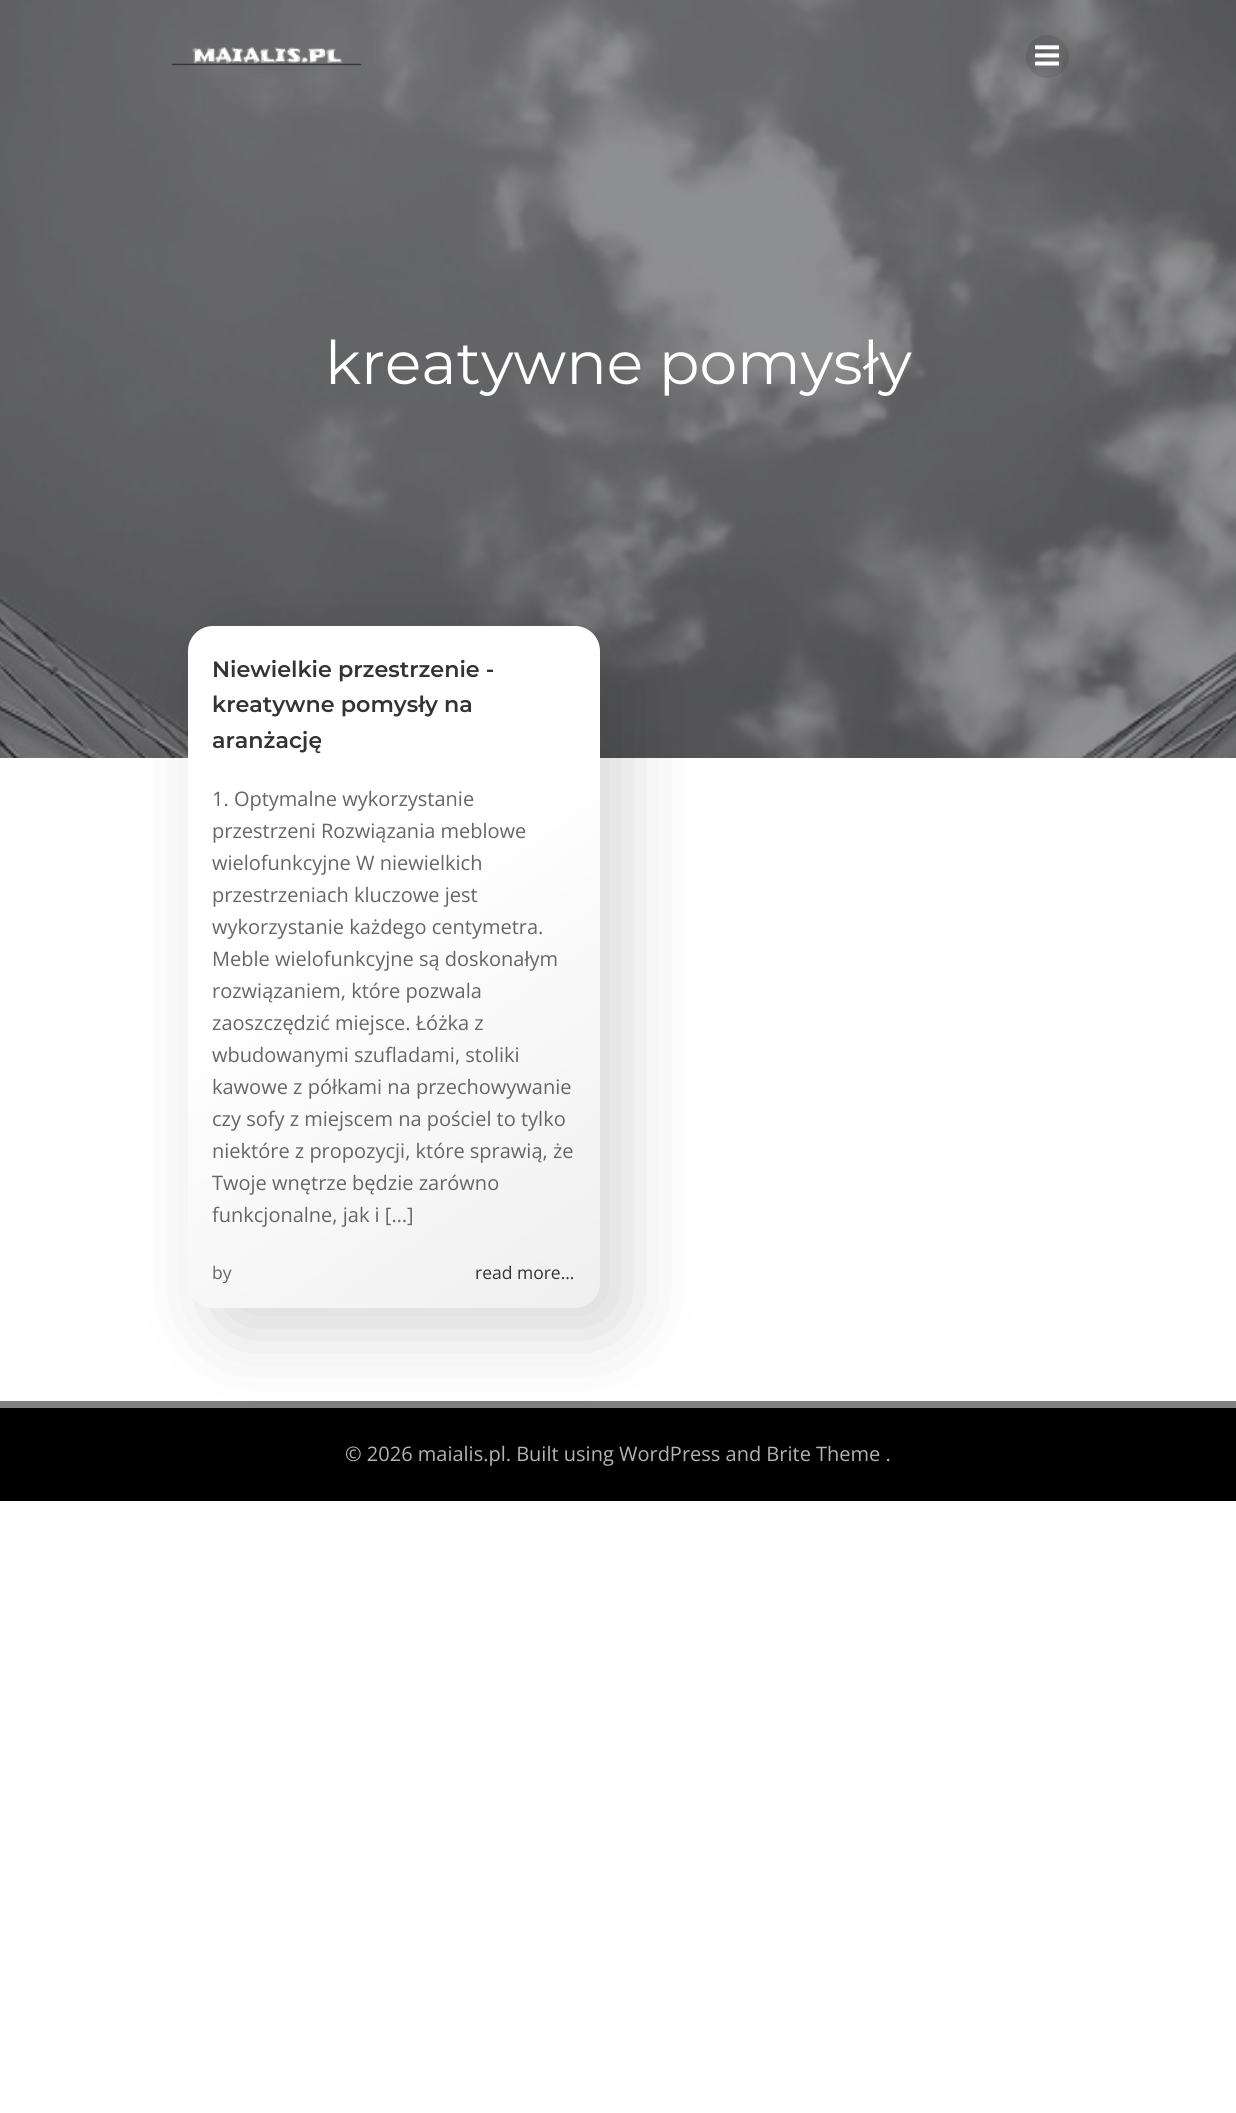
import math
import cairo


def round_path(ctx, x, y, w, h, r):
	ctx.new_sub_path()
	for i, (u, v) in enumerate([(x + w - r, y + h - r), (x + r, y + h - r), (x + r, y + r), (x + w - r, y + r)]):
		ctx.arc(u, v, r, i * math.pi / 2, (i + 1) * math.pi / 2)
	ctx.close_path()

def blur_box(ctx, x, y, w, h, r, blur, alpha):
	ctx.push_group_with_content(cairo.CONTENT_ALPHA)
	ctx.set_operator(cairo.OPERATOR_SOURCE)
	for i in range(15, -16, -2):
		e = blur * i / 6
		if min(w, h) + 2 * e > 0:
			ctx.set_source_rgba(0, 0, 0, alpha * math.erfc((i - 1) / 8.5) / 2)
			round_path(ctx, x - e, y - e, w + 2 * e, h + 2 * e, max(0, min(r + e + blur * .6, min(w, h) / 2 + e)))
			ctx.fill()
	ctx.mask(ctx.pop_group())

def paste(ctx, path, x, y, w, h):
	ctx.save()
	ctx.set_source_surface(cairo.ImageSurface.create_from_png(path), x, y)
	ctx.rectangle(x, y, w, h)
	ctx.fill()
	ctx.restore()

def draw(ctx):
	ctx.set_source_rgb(1, 1, 1)
	ctx.paint()
	paste(ctx, 'media/3.png', 0, 0, 1236, 758)
	paste(ctx, 'media/1.png', 171, 47, 191, 19)
	ctx.set_source_rgba(0, 0, 0, 0.1)
	ctx.arc(1047.5, 56.5, 21.5, 0, 2 * math.pi)
	ctx.fill()
	paste(ctx, 'media/2.png', 1035, 45, 24, 21)
	ctx.select_font_face('Montserrat')
	ctx.set_font_size(60)
	ctx.set_source_rgb(1, 1, 1)
	ctx.move_to(325, 384)
	ctx.show_text('kreatywne pomysły')
	ctx.set_source_rgb(0, 0, 0)
	ctx.rectangle(0, 1408, 1236, 93)
	ctx.fill()
	ctx.set_source_rgb(0.502, 0.502, 0.502)
	ctx.rectangle(0, 1401, 1236, 7)
	ctx.fill()
	ctx.set_source_rgb(0, 0, 0)
	blur_box(ctx, 210, 649, 418, 686, 28, 37.5, 0.15)
	gradient = cairo.LinearGradient(166, 641, 622, 1292)
	gradient.add_color_stop_rgba(0.42, 1, 1, 1, 1)
	gradient.add_color_stop_rgba(1, 0.937, 0.937, 0.937, 1)
	ctx.set_source(gradient)
	round_path(ctx, 188, 626, 412, 682, 25)
	ctx.fill()
	ctx.select_font_face('Montserrat SemiBold')
	ctx.set_font_size(22.25)
	ctx.set_source_rgb(0.2, 0.2, 0.2)
	for x, y, s in [
		(212, 677, 'Niewielkie przestrzenie -'),
		(212, 712, 'kreatywne pomysły na'),
		(212, 748, 'aranżację'),
	]:
		ctx.move_to(x, y)
		ctx.show_text(s)
	ctx.select_font_face('Open Sans')
	ctx.set_font_size(20)
	ctx.set_source_rgb(0.4, 0.4, 0.4)
	for x, y, s in [
		(212, 806, '1. Optymalne wykorzystanie'),
		(212, 838, 'przestrzeni Rozwiązania meblowe'),
		(212, 870, 'wielofunkcyjne W niewielkich'),
		(212, 902, 'przestrzeniach kluczowe jest'),
		(212, 934, 'wykorzystanie każdego centymetra.'),
		(212, 966, 'Meble wielofunkcyjne są doskonałym'),
		(212, 998, 'rozwiązaniem, które pozwala'),
		(212, 1030, 'zaoszczędzić miejsce. Łóżka z'),
		(212, 1062, 'wbudowanymi szufladami, stoliki'),
		(212, 1094, 'kawowe z półkami na przechowywanie'),
		(212, 1126, 'czy sofy z miejscem na pościel to tylko'),
		(212, 1158, 'niektóre z propozycji, które sprawią, że'),
		(212, 1190, 'Twoje wnętrze będzie zarówno'),
		(212, 1222, 'funkcjonalne, jak i […]'),
	]:
		ctx.move_to(x, y)
		ctx.show_text(s)
	ctx.set_font_size(17.5)
	ctx.move_to(212, 1279)
	ctx.show_text('by')
	ctx.set_source_rgb(0.2, 0.2, 0.2)
	ctx.move_to(475, 1279)
	ctx.show_text('read more...')
	ctx.set_font_size(20)
	ctx.set_source_rgb(0.702, 0.702, 0.702)
	ctx.move_to(345, 1461)
	ctx.show_text('© 2026 maialis.pl. Built using WordPress and Brite Theme .')


surface = cairo.ImageSurface(cairo.FORMAT_RGB24, 1236, 2113)
ctx = cairo.Context(surface)
options = cairo.FontOptions()
options.set_hint_metrics(cairo.HINT_METRICS_OFF)
options.set_hint_style(cairo.HINT_STYLE_NONE)
ctx.set_font_options(options)
ctx.set_miter_limit(4)
draw(ctx)
surface.write_to_png('image.png')
